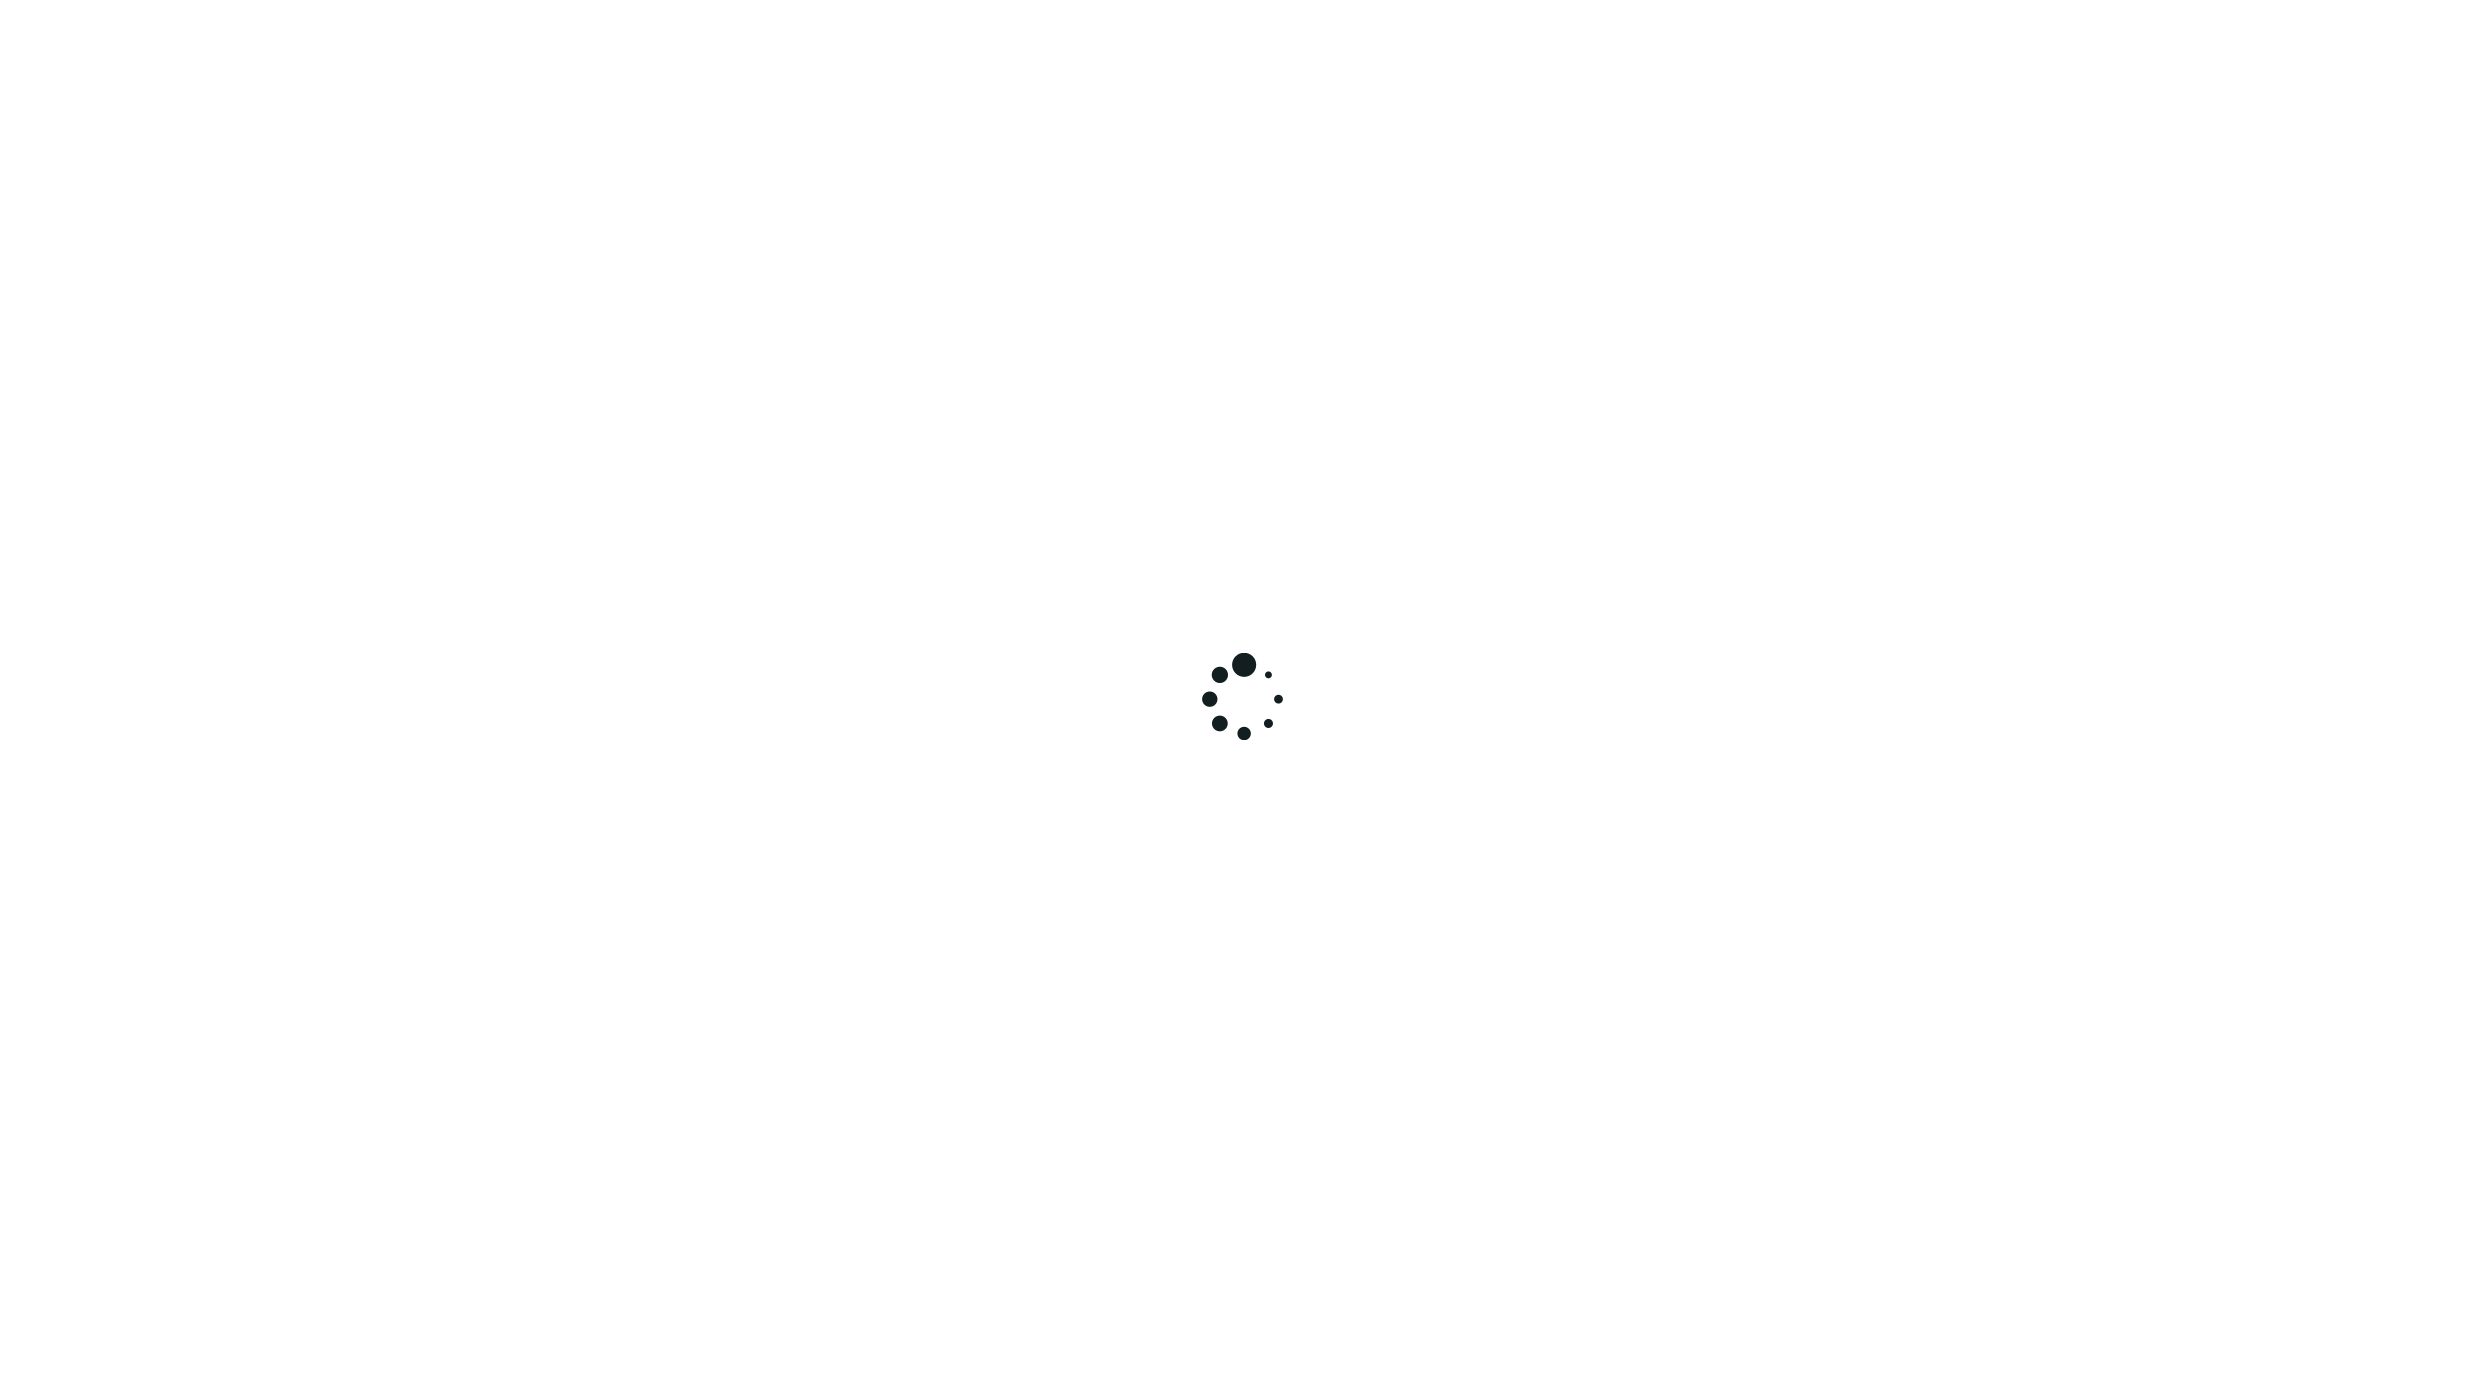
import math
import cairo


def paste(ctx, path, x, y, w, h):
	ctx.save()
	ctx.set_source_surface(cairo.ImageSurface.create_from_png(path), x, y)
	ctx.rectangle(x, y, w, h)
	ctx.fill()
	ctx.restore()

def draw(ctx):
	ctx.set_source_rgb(1, 1, 1)
	ctx.paint()
	paste(ctx, 'media/1.png', 1202, 653, 81, 87)


surface = cairo.ImageSurface(cairo.FORMAT_RGB24, 2483, 1390)
ctx = cairo.Context(surface)
options = cairo.FontOptions()
options.set_hint_metrics(cairo.HINT_METRICS_OFF)
options.set_hint_style(cairo.HINT_STYLE_NONE)
ctx.set_font_options(options)
ctx.set_miter_limit(4)
draw(ctx)
surface.write_to_png('image.png')
